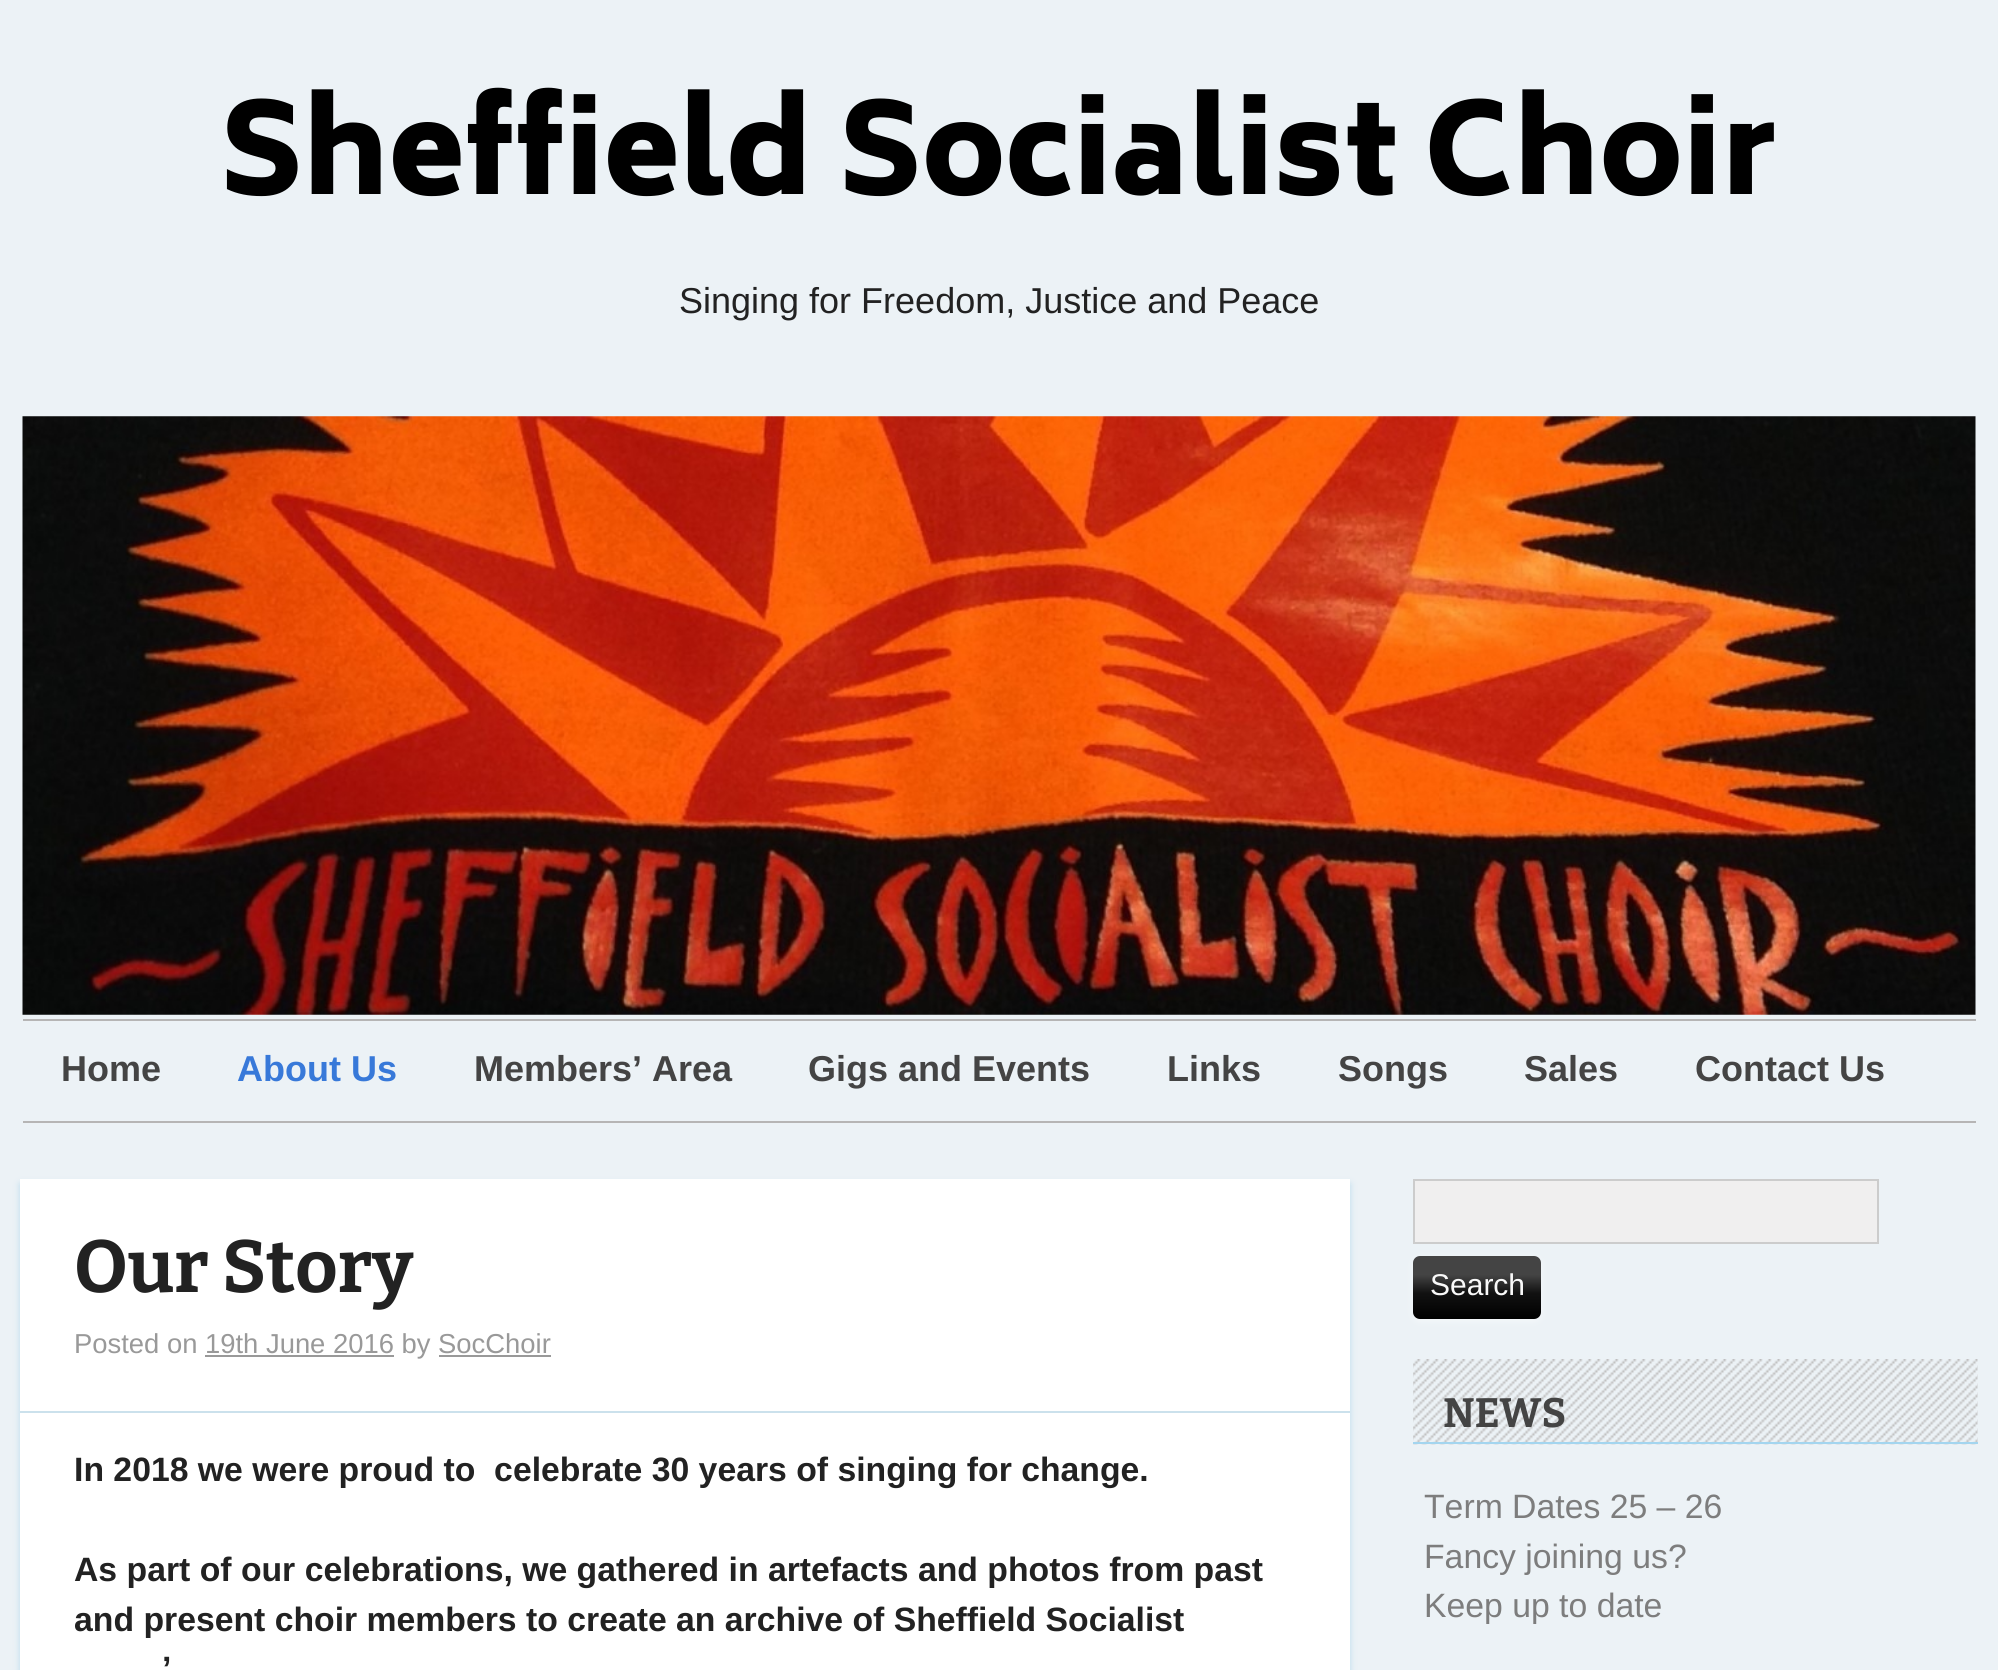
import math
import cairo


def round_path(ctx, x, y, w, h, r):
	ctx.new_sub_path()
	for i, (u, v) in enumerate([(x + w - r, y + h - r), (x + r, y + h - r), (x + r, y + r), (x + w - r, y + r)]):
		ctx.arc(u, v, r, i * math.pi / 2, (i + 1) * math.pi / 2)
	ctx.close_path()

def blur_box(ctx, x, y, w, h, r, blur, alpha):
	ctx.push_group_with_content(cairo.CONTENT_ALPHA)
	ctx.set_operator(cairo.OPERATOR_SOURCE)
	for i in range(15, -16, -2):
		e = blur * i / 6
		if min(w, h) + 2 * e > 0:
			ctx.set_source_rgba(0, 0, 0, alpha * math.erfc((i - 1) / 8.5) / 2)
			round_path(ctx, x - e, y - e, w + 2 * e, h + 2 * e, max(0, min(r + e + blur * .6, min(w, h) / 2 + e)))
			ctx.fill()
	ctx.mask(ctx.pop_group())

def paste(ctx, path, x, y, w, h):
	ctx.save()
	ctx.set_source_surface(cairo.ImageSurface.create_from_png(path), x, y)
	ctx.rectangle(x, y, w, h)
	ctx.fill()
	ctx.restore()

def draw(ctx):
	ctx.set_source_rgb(0.922, 0.949, 0.961)
	ctx.paint()
	ctx.select_font_face('Biryani Black')
	ctx.set_font_size(123.75)
	ctx.set_source_rgb(0, 0, 0)
	ctx.move_to(220, 194)
	ctx.show_text('Sheffield Socialist Choir')
	ctx.select_font_face('Liberation Sans')
	ctx.set_font_size(36)
	ctx.set_source_rgb(0.133, 0.133, 0.133)
	ctx.move_to(679, 313)
	ctx.show_text('Singing for Freedom, Justice and Peace')
	paste(ctx, 'media/1.png', 22, 416, 1954, 599)
	ctx.set_source_rgb(0.714, 0.71, 0.71)
	ctx.rectangle(23, 1019, 1953, 2)
	ctx.fill()
	ctx.rectangle(23, 1121, 1953, 2)
	ctx.fill()
	ctx.select_font_face('Liberation Sans', cairo.FONT_SLANT_NORMAL, cairo.FONT_WEIGHT_BOLD)
	ctx.set_source_rgb(0.267, 0.267, 0.267)
	ctx.move_to(61, 1081)
	ctx.show_text('Home')
	ctx.set_source_rgb(0.22, 0.475, 0.851)
	ctx.move_to(237, 1081)
	ctx.show_text('About Us')
	ctx.set_source_rgb(0.267, 0.267, 0.267)
	for x, y, s in [
		(474, 1081, 'Members’ Area'),
		(808, 1081, 'Gigs and Events'),
		(1167, 1081, 'Links'),
		(1338, 1081, 'Songs'),
		(1524, 1081, 'Sales'),
		(1695, 1081, 'Contact Us'),
	]:
		ctx.move_to(x, y)
		ctx.show_text(s)
	ctx.set_source_rgb(0.737, 0.863, 0.929)
	blur_box(ctx, 20, 1184, 1330, 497, 0, 3.5, 1)
	ctx.set_source_rgb(1, 1, 1)
	ctx.rectangle(20, 1179, 1330, 491)
	ctx.fill()
	ctx.set_source_rgb(0.796, 0.882, 0.925)
	ctx.rectangle(20, 1411, 1330, 2)
	ctx.fill()
	ctx.select_font_face('Bitter', cairo.FONT_SLANT_NORMAL, cairo.FONT_WEIGHT_BOLD)
	ctx.set_font_size(73.5)
	ctx.set_source_rgb(0.133, 0.133, 0.133)
	ctx.move_to(74, 1292)
	ctx.show_text('Our Story')
	ctx.select_font_face('Liberation Sans')
	ctx.set_font_size(27.4)
	ctx.set_source_rgb(0.6, 0.6, 0.6)
	ctx.move_to(74, 1353)
	ctx.show_text('Posted on 19th June 2016 by SocChoir')
	ctx.rectangle(205, 1355, 189, 2)
	ctx.fill()
	ctx.rectangle(439, 1355, 112, 2)
	ctx.fill()
	ctx.select_font_face('Liberation Sans', cairo.FONT_SLANT_NORMAL, cairo.FONT_WEIGHT_BOLD)
	ctx.set_font_size(33.75)
	ctx.set_source_rgb(0.133, 0.133, 0.133)
	for x, y, s in [
		(74, 1481, 'In 2018 we were proud to  celebrate 30 years of singing for change.'),
		(74, 1581, 'As part of our celebrations, we gathered in artefacts and photos from past'),
		(74, 1631, 'and present choir members to create an archive of Sheffield Socialist'),
		(162, 1680, '’'),
	]:
		ctx.move_to(x, y)
		ctx.show_text(s)
	ctx.set_source_rgb(0.941, 0.937, 0.937)
	ctx.rectangle(1414, 1180, 464, 63)
	ctx.fill_preserve()
	ctx.set_source_rgb(0.8, 0.8, 0.8)
	ctx.stroke()
	ctx.set_source_rgb(1, 1, 1)
	blur_box(ctx, 1413, 1258, 128, 63, 7, 3.5, 0.5)
	gradient = cairo.LinearGradient(1413, 1256, 1413, 1319)
	gradient.add_color_stop_rgba(0, 1, 1, 1, 1)
	gradient.add_color_stop_rgba(0, 0.267, 0.267, 0.267, 1)
	gradient.add_color_stop_rgba(0.3, 0.267, 0.267, 0.267, 1)
	gradient.add_color_stop_rgba(0.59, 0.067, 0.067, 0.067, 1)
	gradient.add_color_stop_rgba(1, 0, 0, 0, 1)
	ctx.set_source(gradient)
	round_path(ctx, 1413, 1256, 128, 63, 7)
	ctx.fill()
	ctx.select_font_face('Liberation Sans')
	ctx.set_font_size(30)
	ctx.set_source_rgb(0.973, 0.973, 0.973)
	ctx.move_to(1430, 1295)
	ctx.show_text('Search')
	paste(ctx, 'media/2.png', 1413, 1359, 565, 86)
	ctx.set_source_rgb(0.639, 0.835, 0.937)
	ctx.rectangle(1413, 1442, 565, 2)
	ctx.fill()
	ctx.select_font_face('Bitter', cairo.FONT_SLANT_NORMAL, cairo.FONT_WEIGHT_BOLD)
	ctx.set_font_size(41)
	ctx.set_source_rgb(0.267, 0.267, 0.267)
	ctx.move_to(1443, 1427)
	ctx.show_text('NEWS')
	ctx.select_font_face('Liberation Sans')
	ctx.set_font_size(33.75)
	ctx.set_source_rgb(0.49, 0.49, 0.49)
	for x, y, s in [
		(1424, 1518, 'Term Dates 25 – 26'),
		(1424, 1568, 'Fancy joining us?'),
		(1424, 1617, 'Keep up to date'),
	]:
		ctx.move_to(x, y)
		ctx.show_text(s)


surface = cairo.ImageSurface(cairo.FORMAT_RGB24, 1998, 1670)
ctx = cairo.Context(surface)
options = cairo.FontOptions()
options.set_hint_metrics(cairo.HINT_METRICS_OFF)
options.set_hint_style(cairo.HINT_STYLE_NONE)
ctx.set_font_options(options)
ctx.set_miter_limit(4)
draw(ctx)
surface.write_to_png('image.png')
